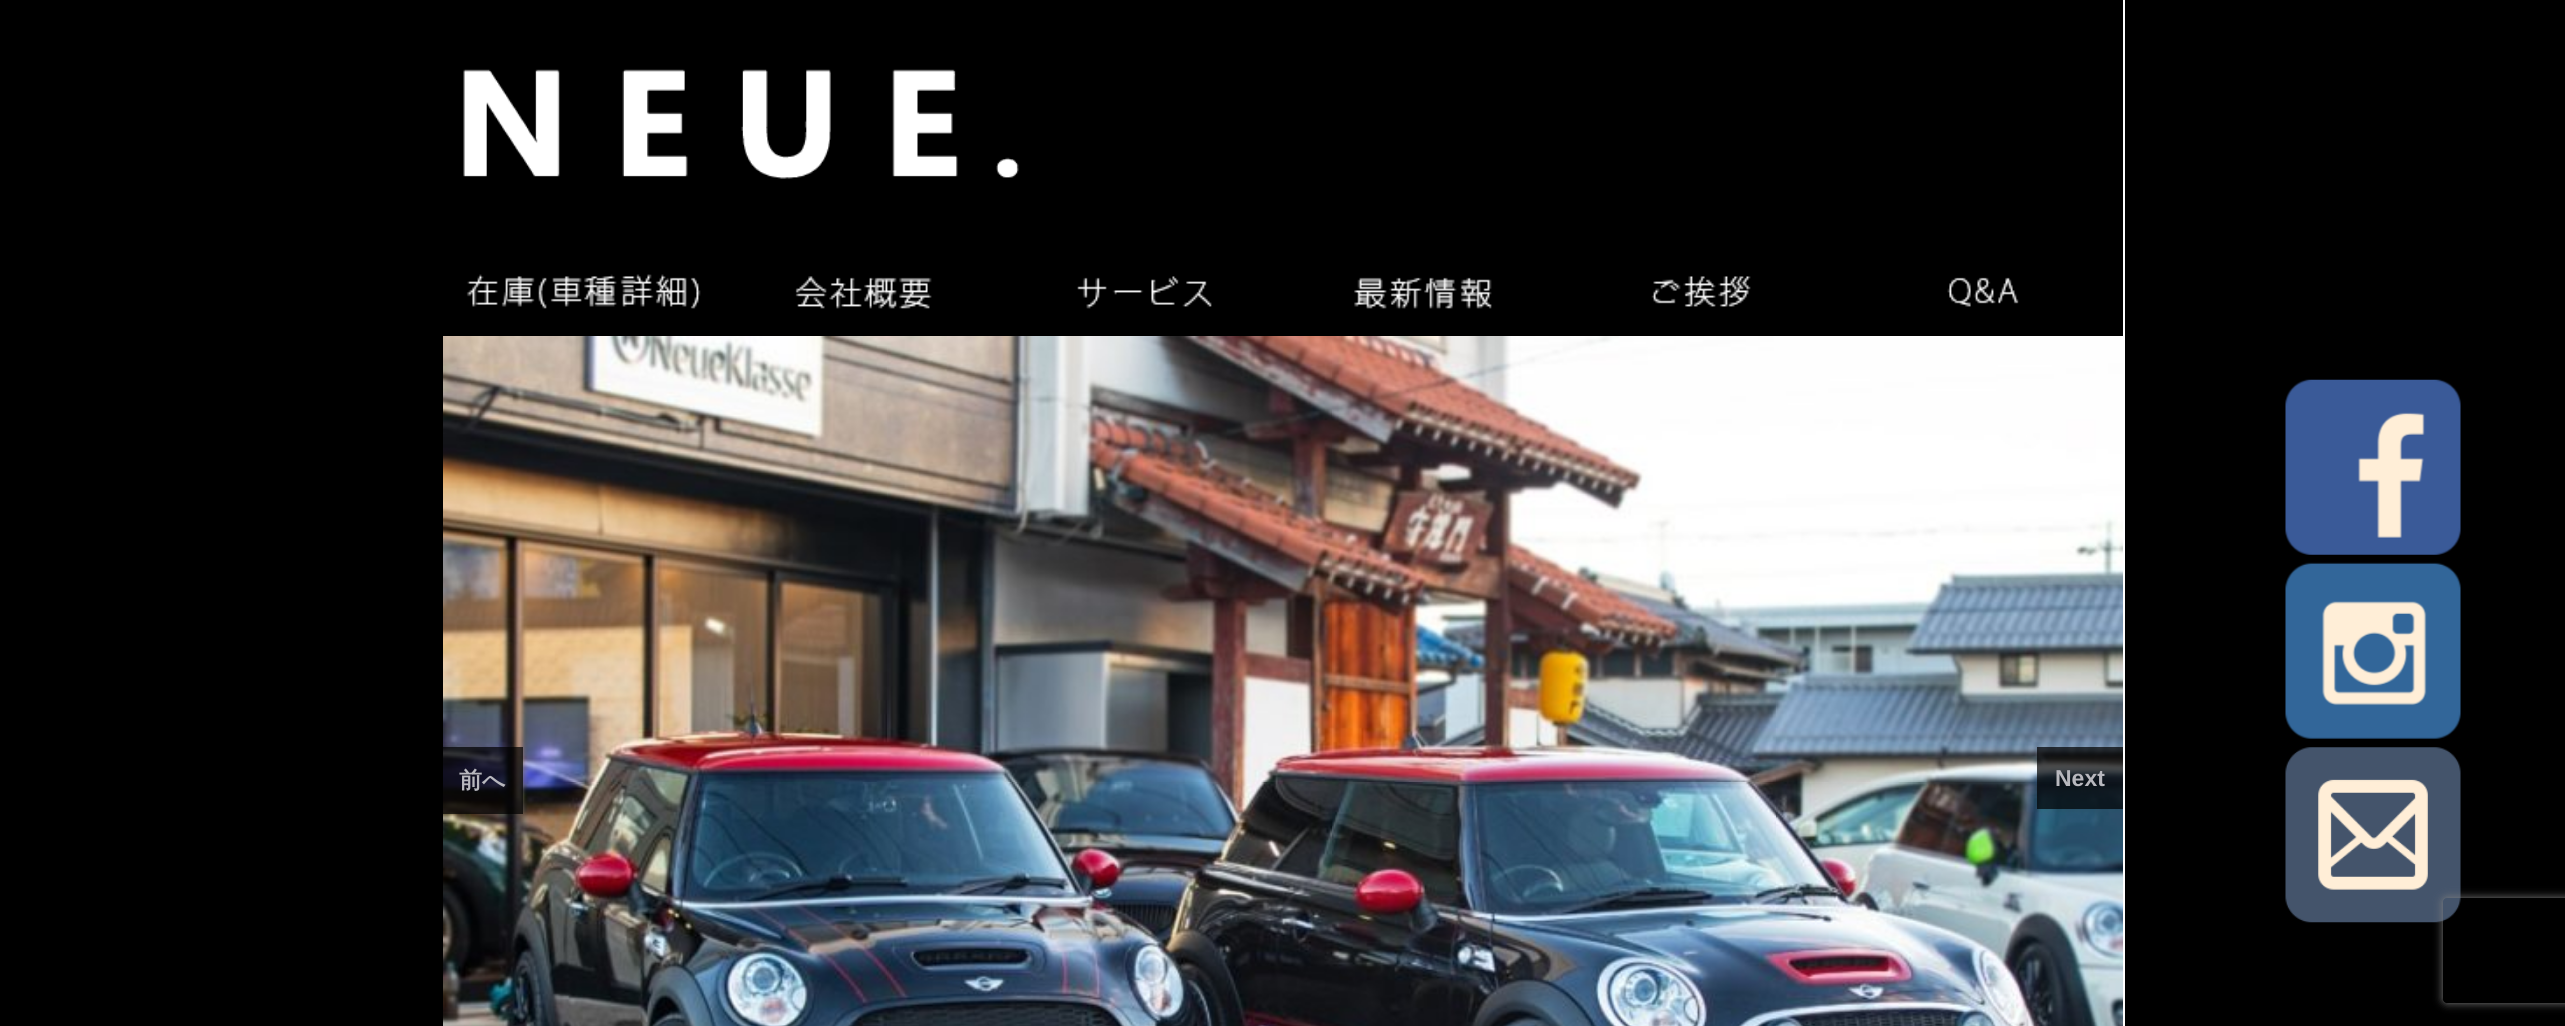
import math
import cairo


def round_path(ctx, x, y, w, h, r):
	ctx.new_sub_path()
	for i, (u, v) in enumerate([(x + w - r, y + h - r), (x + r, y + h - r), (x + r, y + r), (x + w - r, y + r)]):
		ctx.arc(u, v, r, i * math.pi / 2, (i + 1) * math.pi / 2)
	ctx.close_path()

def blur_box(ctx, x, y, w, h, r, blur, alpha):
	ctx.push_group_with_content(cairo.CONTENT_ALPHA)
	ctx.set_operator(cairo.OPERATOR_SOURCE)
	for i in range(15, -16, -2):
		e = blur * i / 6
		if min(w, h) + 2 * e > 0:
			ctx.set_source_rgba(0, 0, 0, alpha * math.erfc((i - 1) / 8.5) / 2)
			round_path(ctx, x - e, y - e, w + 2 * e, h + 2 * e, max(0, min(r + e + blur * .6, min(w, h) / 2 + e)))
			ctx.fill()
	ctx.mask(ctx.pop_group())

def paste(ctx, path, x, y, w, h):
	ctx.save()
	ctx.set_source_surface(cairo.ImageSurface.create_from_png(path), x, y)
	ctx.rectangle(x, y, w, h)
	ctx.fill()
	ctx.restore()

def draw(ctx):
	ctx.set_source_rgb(0, 0, 0)
	ctx.paint()
	ctx.set_source_rgb(1, 1, 1)
	ctx.rectangle(2123, 0, 2, 1026)
	ctx.fill()
	paste(ctx, 'media/1.png', 463, 69, 556, 110)
	paste(ctx, 'media/2.png', 466, 274, 235, 35)
	paste(ctx, 'media/3.png', 795, 276, 137, 33)
	paste(ctx, 'media/4.png', 1077, 276, 135, 33)
	paste(ctx, 'media/5.png', 1354, 277, 138, 32)
	paste(ctx, 'media/6.png', 1651, 276, 100, 31)
	paste(ctx, 'media/7.png', 1947, 277, 72, 30)
	paste(ctx, 'media/8.png', 443, 336, 1680, 690)
	ctx.set_source_rgba(0, 0, 0, 0.7)
	ctx.rectangle(443, 747, 80, 67)
	ctx.fill()
	ctx.select_font_face('WenQuanYi Zen Hei', cairo.FONT_SLANT_NORMAL, cairo.FONT_WEIGHT_BOLD)
	ctx.set_font_size(23)
	ctx.set_source_rgb(0.722, 0.722, 0.745)
	ctx.move_to(459, 788)
	ctx.show_text('前へ')
	ctx.set_source_rgba(0, 0, 0, 0.7)
	ctx.rectangle(2037, 747, 86, 62)
	ctx.fill()
	ctx.select_font_face('Liberation Sans', cairo.FONT_SLANT_NORMAL, cairo.FONT_WEIGHT_BOLD)
	ctx.set_source_rgb(0.722, 0.722, 0.745)
	ctx.move_to(2055, 786)
	ctx.show_text('Next')
	paste(ctx, 'media/9.png', 2285, 379, 176, 176)
	paste(ctx, 'media/10.png', 2285, 562, 176, 177)
	paste(ctx, 'media/11.png', 2285, 747, 176, 176)
	ctx.save()
	ctx.set_fill_rule(cairo.FILL_RULE_EVEN_ODD)
	ctx.new_path()
	ctx.move_to(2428, 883)
	ctx.line_to(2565, 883)
	ctx.line_to(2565, 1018)
	ctx.line_to(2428, 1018)
	ctx.close_path()
	ctx.move_to(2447, 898)
	ctx.line_to(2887, 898)
	ctx.curve_to(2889, 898, 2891, 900, 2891, 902)
	ctx.line_to(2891, 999)
	ctx.curve_to(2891, 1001, 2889, 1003, 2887, 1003)
	ctx.line_to(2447, 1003)
	ctx.curve_to(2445, 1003, 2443, 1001, 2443, 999)
	ctx.line_to(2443, 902)
	ctx.curve_to(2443, 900, 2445, 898, 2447, 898)
	ctx.close_path()
	ctx.clip()
	ctx.set_source_rgb(0.502, 0.502, 0.502)
	blur_box(ctx, 2443, 898, 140, 105, 4, 4.5, 1)
	ctx.restore()


surface = cairo.ImageSurface(cairo.FORMAT_RGB24, 2565, 1026)
ctx = cairo.Context(surface)
options = cairo.FontOptions()
options.set_hint_metrics(cairo.HINT_METRICS_OFF)
options.set_hint_style(cairo.HINT_STYLE_NONE)
ctx.set_font_options(options)
ctx.set_miter_limit(4)
draw(ctx)
surface.write_to_png('image.png')
